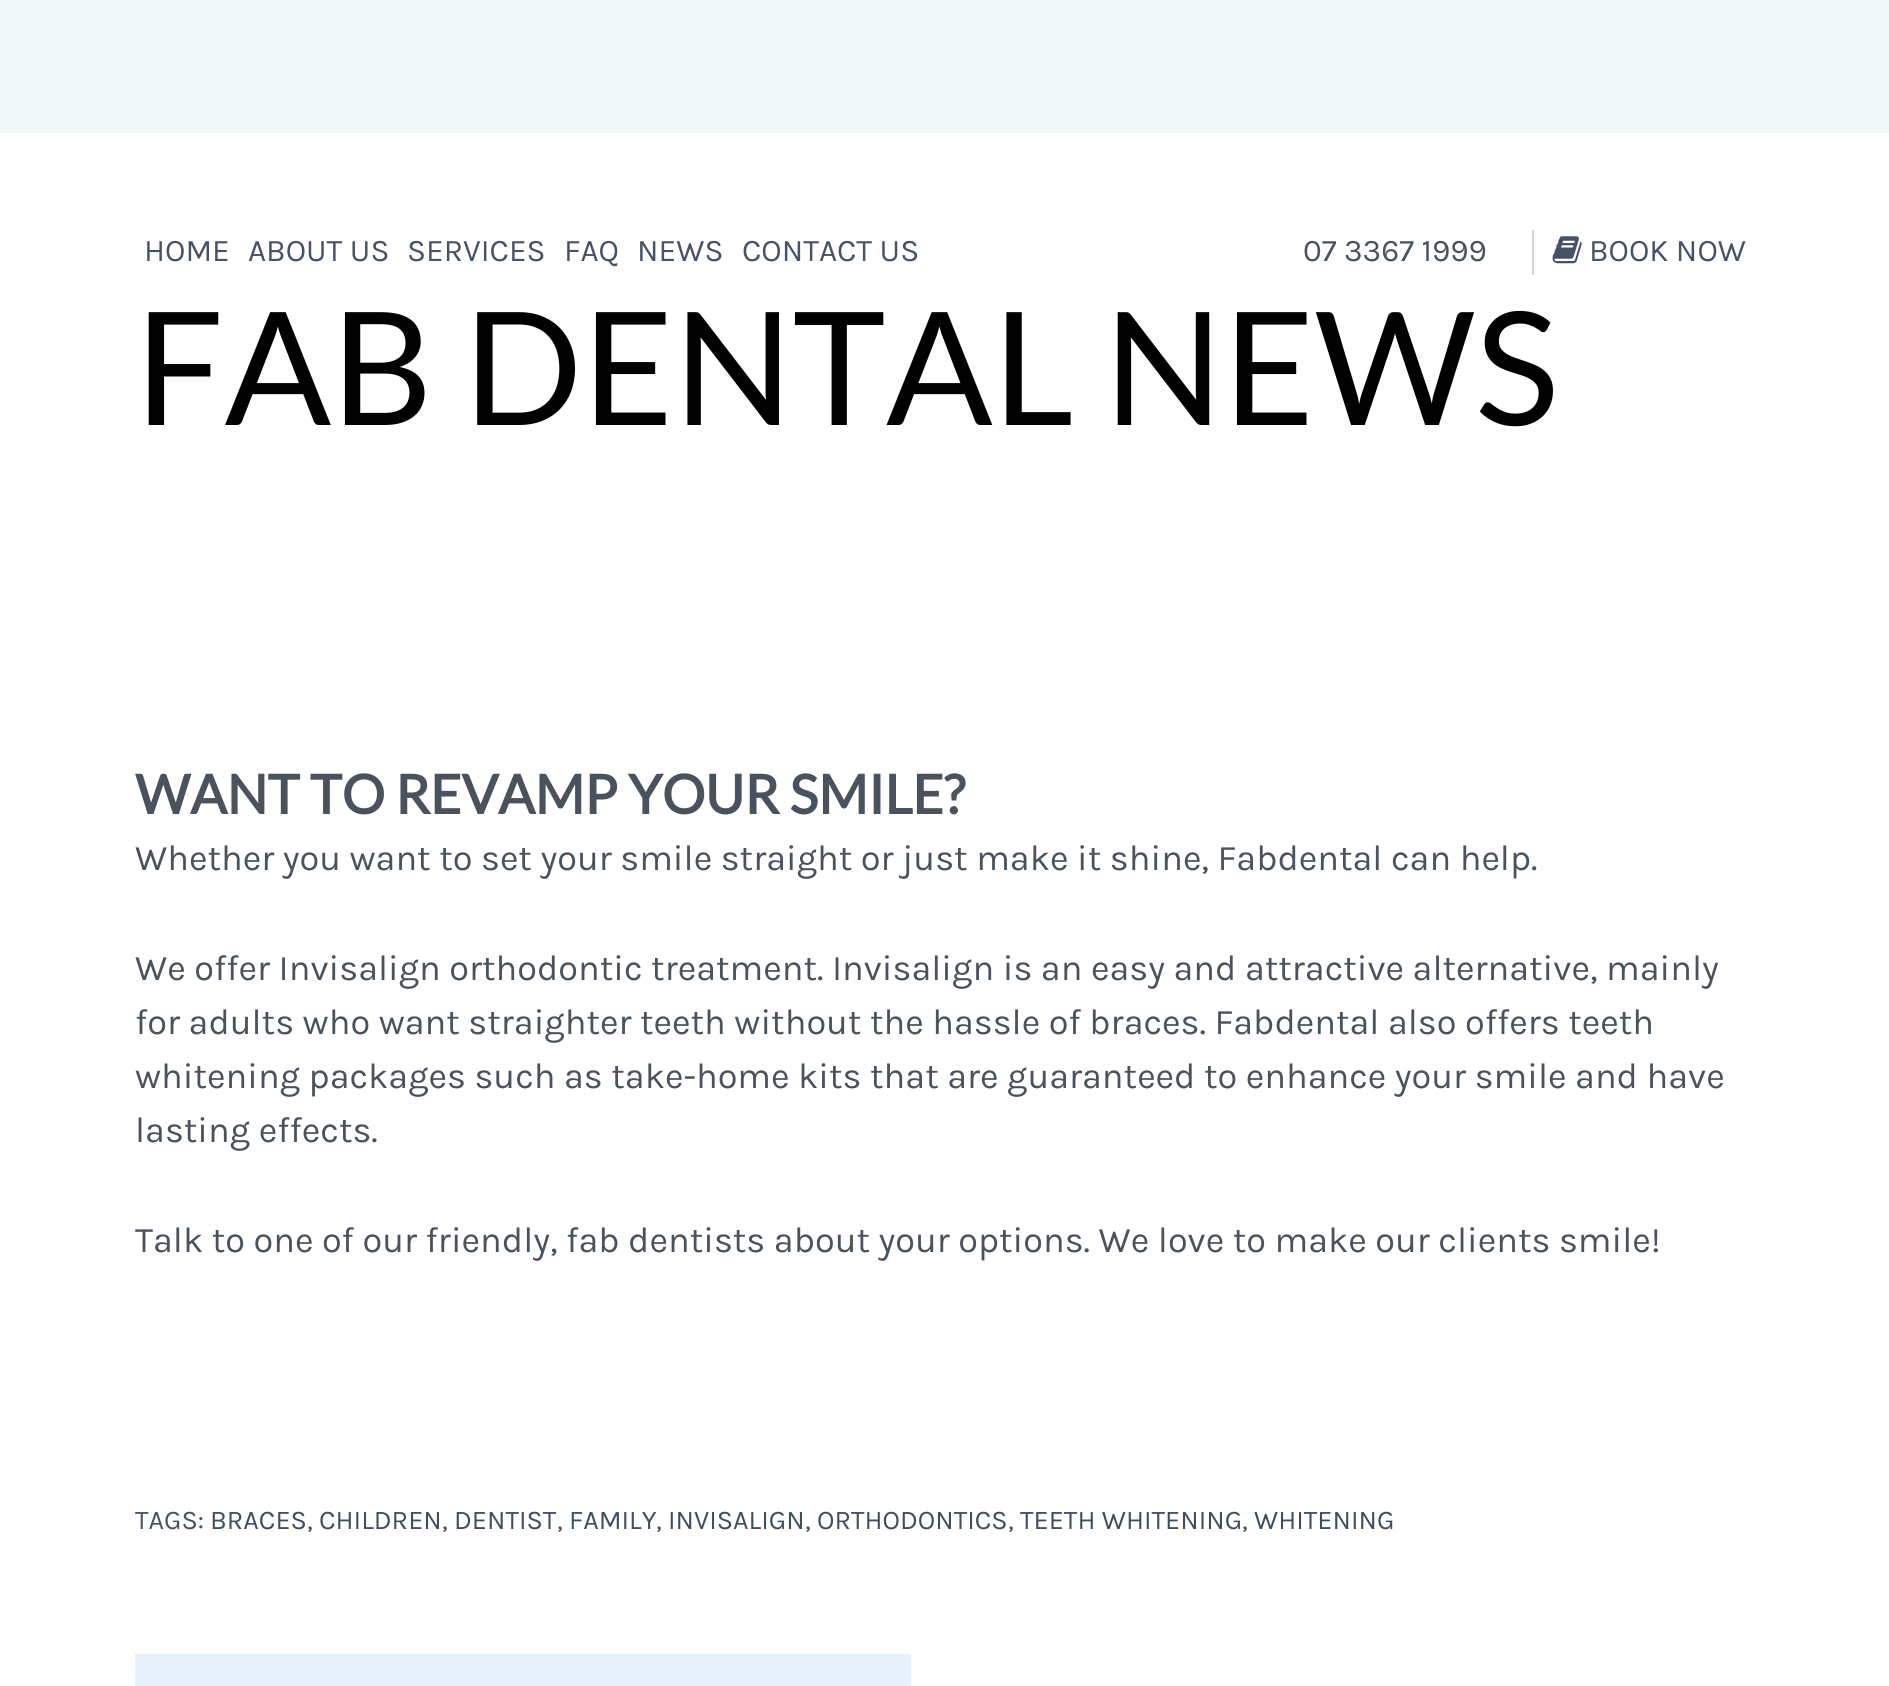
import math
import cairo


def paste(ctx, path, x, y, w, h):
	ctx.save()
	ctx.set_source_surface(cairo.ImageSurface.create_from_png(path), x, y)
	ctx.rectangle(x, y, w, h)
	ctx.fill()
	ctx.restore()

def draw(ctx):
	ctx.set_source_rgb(1, 1, 1)
	ctx.paint()
	ctx.set_source_rgb(0.945, 0.969, 0.976)
	ctx.rectangle(0, 0, 1889, 133)
	ctx.fill()
	ctx.select_font_face('Karla')
	ctx.set_font_size(31.5)
	ctx.set_source_rgb(0.278, 0.322, 0.404)
	for x, y, s in [
		(144, 261, 'HOME'),
		(248, 261, 'ABOUT US'),
		(407, 261, 'SERVICES'),
		(564, 261, 'FAQ'),
		(637, 261, 'NEWS'),
		(742, 261, 'CONTACT US'),
	]:
		ctx.move_to(x, y)
		ctx.show_text(s)
	ctx.set_source_rgb(0.29, 0.322, 0.365)
	ctx.move_to(1303, 261)
	ctx.show_text('07 3367 1999')
	ctx.set_source_rgb(0.827, 0.827, 0.827)
	ctx.rectangle(1532, 230, 2, 45)
	ctx.fill()
	paste(ctx, 'media/1.png', 1552, 236, 30, 28)
	ctx.set_source_rgb(0.278, 0.322, 0.404)
	ctx.move_to(1589, 261)
	ctx.show_text('BOOK NOW')
	ctx.select_font_face('Lato')
	ctx.set_font_size(157.5)
	ctx.set_source_rgb(0, 0, 0)
	ctx.move_to(135, 425)
	ctx.show_text('FAB DENTAL NEWS')
	ctx.select_font_face('Lato', cairo.FONT_SLANT_NORMAL, cairo.FONT_WEIGHT_BOLD)
	ctx.set_font_size(54)
	ctx.set_source_rgb(0.29, 0.322, 0.365)
	ctx.move_to(135, 814)
	ctx.show_text('WANT TO REVAMP YOUR SMILE?')
	ctx.select_font_face('Karla')
	ctx.set_font_size(36)
	for x, y, s in [
		(135, 870, 'Whether you want to set your smile straight or just make it shine, Fabdental can help.'),
		(135, 980, 'We offer Invisalign orthodontic treatment. Invisalign is an easy and attractive alternative, mainly'),
		(135, 1034, 'for adults who want straighter teeth without the hassle of braces. Fabdental also offers teeth'),
		(135, 1088, 'whitening packages such as take-home kits that are guaranteed to enhance your smile and have'),
		(135, 1142, 'lasting effects.'),
		(135, 1252, 'Talk to one of our friendly, fab dentists about your options. We love to make our clients smile!'),
	]:
		ctx.move_to(x, y)
		ctx.show_text(s)
	ctx.set_font_size(27)
	ctx.move_to(135, 1529)
	ctx.show_text('TAGS:')
	ctx.set_source_rgb(0.251, 0.302, 0.373)
	ctx.move_to(210, 1529)
	ctx.show_text('BRACES')
	ctx.set_source_rgb(0.29, 0.322, 0.365)
	ctx.move_to(307, 1529)
	ctx.show_text(',')
	ctx.set_source_rgb(0.251, 0.302, 0.373)
	ctx.move_to(319, 1529)
	ctx.show_text('CHILDREN')
	ctx.set_source_rgb(0.29, 0.322, 0.365)
	ctx.move_to(442, 1529)
	ctx.show_text(',')
	ctx.set_source_rgb(0.251, 0.302, 0.373)
	ctx.move_to(454, 1529)
	ctx.show_text('DENTIST')
	ctx.set_source_rgb(0.29, 0.322, 0.365)
	ctx.move_to(557, 1529)
	ctx.show_text(',')
	ctx.set_source_rgb(0.251, 0.302, 0.373)
	ctx.move_to(569, 1529)
	ctx.show_text('FAMILY')
	ctx.set_source_rgb(0.29, 0.322, 0.365)
	ctx.move_to(656, 1529)
	ctx.show_text(',')
	ctx.set_source_rgb(0.251, 0.302, 0.373)
	ctx.move_to(668, 1529)
	ctx.show_text('INVISALIGN')
	ctx.set_source_rgb(0.29, 0.322, 0.365)
	ctx.move_to(805, 1529)
	ctx.show_text(',')
	ctx.set_source_rgb(0.251, 0.302, 0.373)
	ctx.move_to(817, 1529)
	ctx.show_text('ORTHODONTICS')
	ctx.set_source_rgb(0.29, 0.322, 0.365)
	ctx.move_to(1008, 1529)
	ctx.show_text(',')
	ctx.set_source_rgb(0.251, 0.302, 0.373)
	ctx.move_to(1020, 1529)
	ctx.show_text('TEETH WHITENING')
	ctx.set_source_rgb(0.29, 0.322, 0.365)
	ctx.move_to(1242, 1529)
	ctx.show_text(',')
	ctx.set_source_rgb(0.251, 0.302, 0.373)
	ctx.move_to(1254, 1529)
	ctx.show_text('WHITENING')
	ctx.set_source_rgb(0.898, 0.941, 0.984)
	ctx.rectangle(135, 1654, 776, 32)
	ctx.fill()


surface = cairo.ImageSurface(cairo.FORMAT_RGB24, 1889, 1686)
ctx = cairo.Context(surface)
options = cairo.FontOptions()
options.set_hint_metrics(cairo.HINT_METRICS_OFF)
options.set_hint_style(cairo.HINT_STYLE_NONE)
ctx.set_font_options(options)
ctx.set_miter_limit(4)
draw(ctx)
surface.write_to_png('image.png')
